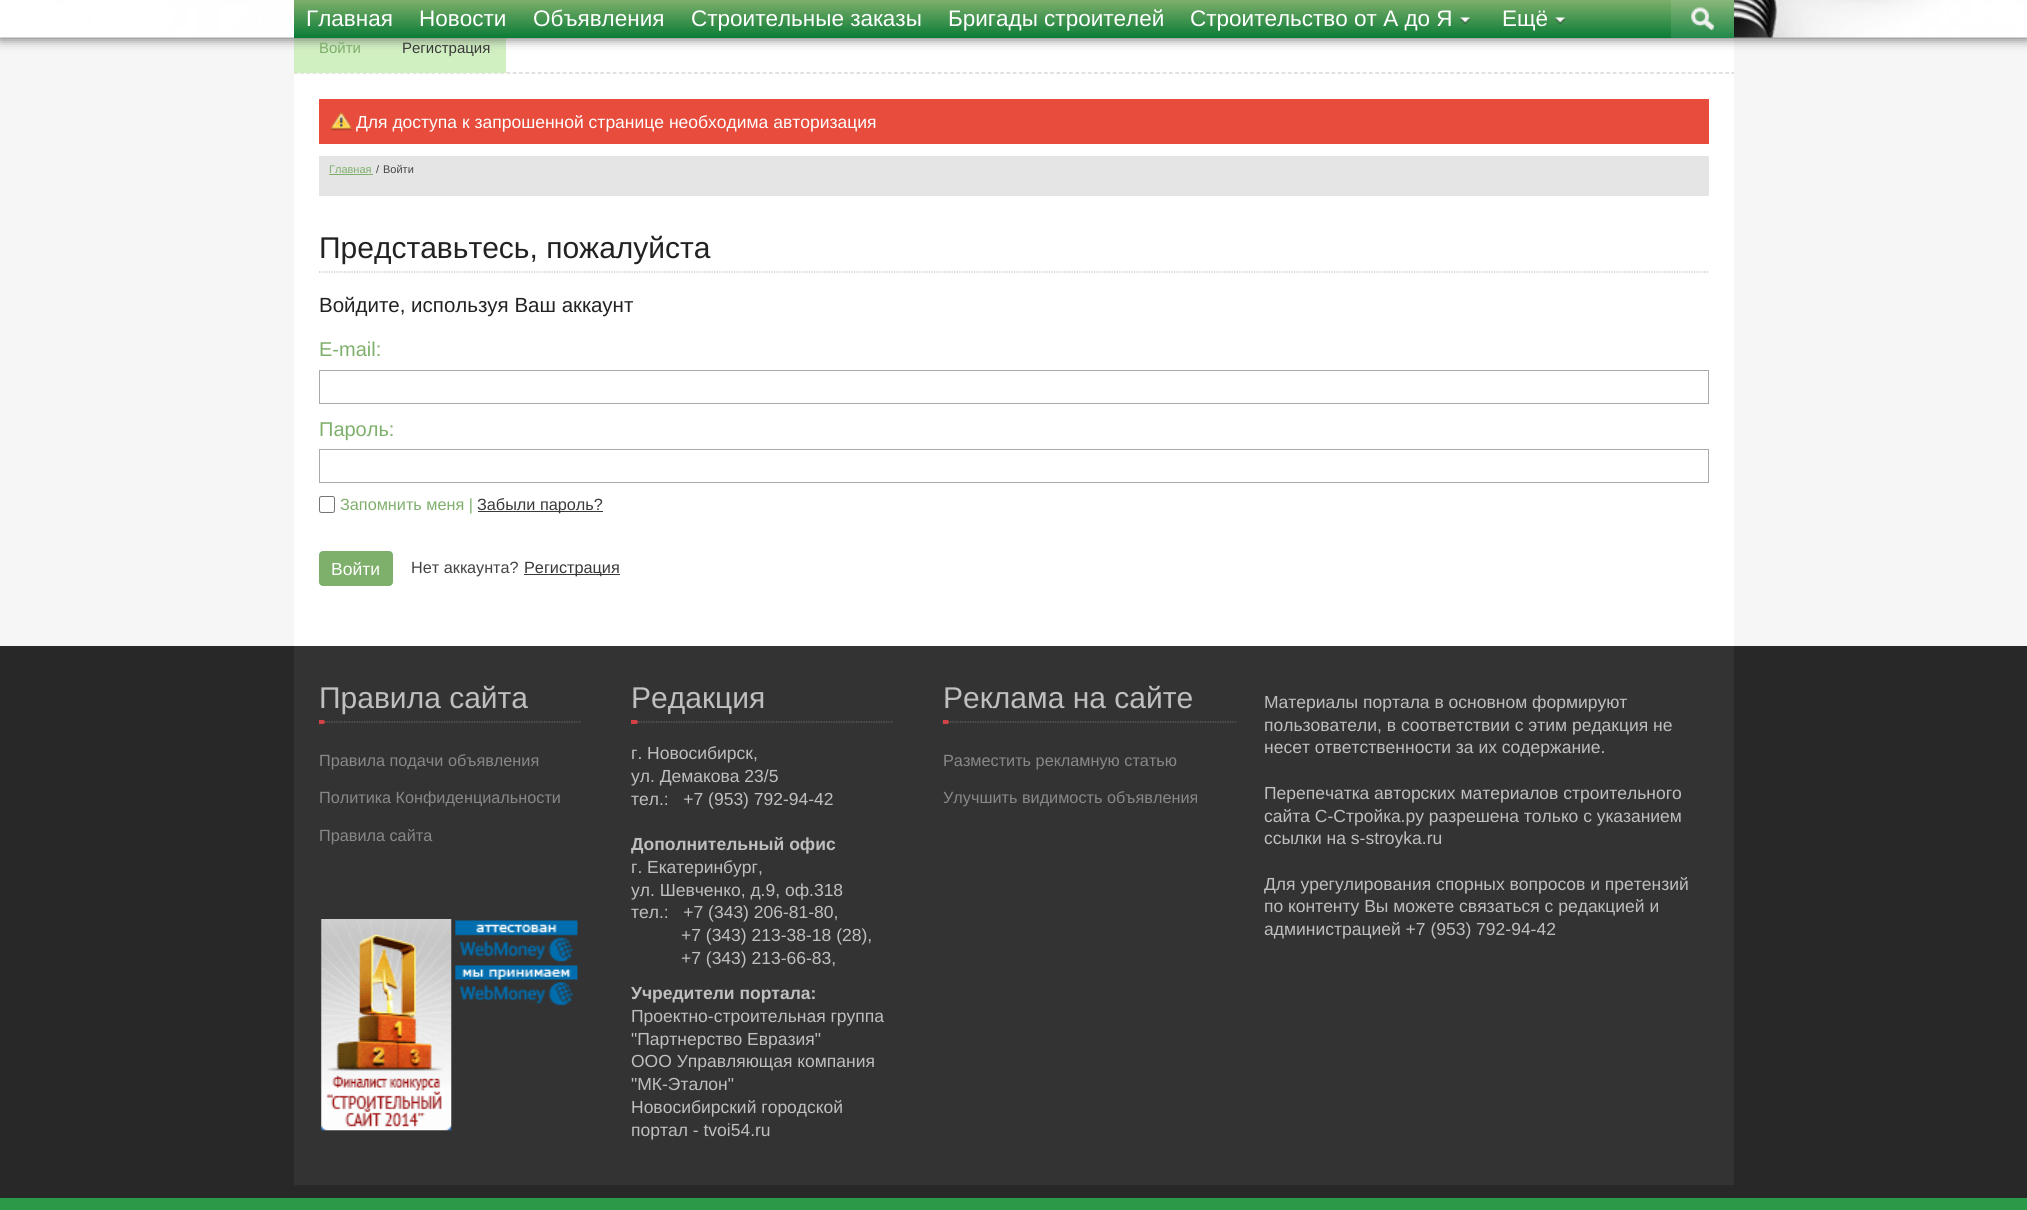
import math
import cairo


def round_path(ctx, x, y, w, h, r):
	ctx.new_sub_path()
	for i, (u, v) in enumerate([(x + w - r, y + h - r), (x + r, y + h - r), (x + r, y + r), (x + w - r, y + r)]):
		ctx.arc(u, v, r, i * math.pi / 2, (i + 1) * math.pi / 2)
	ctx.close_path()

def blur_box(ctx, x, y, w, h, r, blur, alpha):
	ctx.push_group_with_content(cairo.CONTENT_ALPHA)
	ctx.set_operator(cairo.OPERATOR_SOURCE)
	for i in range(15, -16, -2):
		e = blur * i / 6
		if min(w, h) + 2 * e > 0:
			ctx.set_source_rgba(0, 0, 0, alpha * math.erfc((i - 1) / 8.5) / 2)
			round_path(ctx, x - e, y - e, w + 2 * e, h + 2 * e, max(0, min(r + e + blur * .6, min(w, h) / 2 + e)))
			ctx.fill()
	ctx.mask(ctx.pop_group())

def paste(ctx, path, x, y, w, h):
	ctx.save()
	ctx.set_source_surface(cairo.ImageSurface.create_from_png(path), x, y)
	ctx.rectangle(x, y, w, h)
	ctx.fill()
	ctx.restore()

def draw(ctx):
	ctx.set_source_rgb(0.961, 0.961, 0.961)
	ctx.paint()
	ctx.set_source_rgb(1, 1, 1)
	ctx.rectangle(294, 38, 1440, 608)
	ctx.fill()
	ctx.new_path()
	ctx.move_to(294, 73)
	ctx.line_to(1734, 73)
	ctx.set_source_rgb(0.808, 0.808, 0.808)
	ctx.set_line_width(1.2)
	ctx.set_dash([3.75, 2.5])
	ctx.stroke()
	ctx.set_source_rgb(0.82, 0.941, 0.761)
	ctx.rectangle(294, 38, 212, 35)
	ctx.fill()
	ctx.set_source_rgb(0.333, 0.333, 0.333)
	blur_box(ctx, 0, 0, 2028, 38, 0, 6, 1)
	paste(ctx, 'media/1.png', 0, 0, 2027, 38)
	gradient = cairo.LinearGradient(1014, 0, 1014, 38)
	gradient.add_color_stop_rgba(0, 0.494, 0.686, 0.42, 1)
	gradient.add_color_stop_rgba(1, 0.035, 0.486, 0.212, 1)
	ctx.set_source(gradient)
	ctx.rectangle(294, 0, 1440, 38)
	ctx.fill()
	ctx.select_font_face('Liberation Sans')
	ctx.set_font_size(22.5)
	ctx.set_source_rgb(1, 1, 1)
	for x, y, s in [
		(306, 26, 'Главная'),
		(419, 26, 'Новости'),
		(533, 26, 'Объявления'),
		(691, 26, 'Строительные заказы'),
		(948, 26, 'Бригады строителей'),
		(1190, 26, 'Строительство от А до Я'),
	]:
		ctx.move_to(x, y)
		ctx.show_text(s)
	paste(ctx, 'media/2.png', 1460, 17, 11, 7)
	ctx.move_to(1502, 26)
	ctx.show_text('Ещё')
	paste(ctx, 'media/2.png', 1555, 17, 11, 7)
	ctx.set_source_rgba(1, 1, 1, 0.1)
	ctx.rectangle(1671, 0, 63, 38)
	ctx.fill()
	paste(ctx, 'media/3.png', 1691, 7, 23, 23)
	ctx.set_font_size(15)
	ctx.set_source_rgb(0.494, 0.686, 0.42)
	ctx.move_to(319, 53)
	ctx.show_text('Войти')
	ctx.set_source_rgb(0.224, 0.224, 0.224)
	ctx.move_to(402, 53)
	ctx.show_text('Регистрация')
	ctx.set_source_rgb(0.906, 0.298, 0.235)
	ctx.rectangle(319, 99, 1390, 45)
	ctx.fill()
	paste(ctx, 'media/4.png', 331, 112, 21, 19)
	ctx.set_font_size(17.5)
	ctx.set_source_rgb(1, 1, 1)
	ctx.move_to(356, 128)
	ctx.show_text('Для доступа к запрошенной странице необходима авторизация')
	ctx.set_source_rgb(0.902, 0.898, 0.898)
	ctx.rectangle(319, 156, 1390, 40)
	ctx.fill()
	ctx.set_font_size(11)
	ctx.set_source_rgb(0.494, 0.686, 0.42)
	ctx.move_to(329, 173)
	ctx.show_text('Главная')
	ctx.rectangle(329, 174, 44, 1)
	ctx.fill()
	ctx.set_source_rgb(0.267, 0.267, 0.267)
	ctx.move_to(376, 173)
	ctx.show_text('/')
	ctx.move_to(383, 173)
	ctx.show_text('Войти')
	ctx.new_path()
	ctx.move_to(319, 272)
	ctx.line_to(1709, 272)
	ctx.set_source_rgb(0.749, 0.749, 0.749)
	ctx.set_dash([1.25, 1.25])
	ctx.stroke()
	ctx.set_font_size(30)
	ctx.set_source_rgb(0.133, 0.133, 0.133)
	ctx.move_to(319, 258)
	ctx.show_text('Представьтесь, пожалуйста')
	ctx.set_font_size(20.5)
	ctx.move_to(319, 312)
	ctx.show_text('Войдите, используя Ваш аккаунт')
	ctx.set_font_size(20)
	ctx.set_source_rgb(0.494, 0.686, 0.42)
	ctx.move_to(319, 356)
	ctx.show_text('E-mail:')
	ctx.rectangle(319.5, 370.5, 1389, 33)
	ctx.set_source_rgb(0.667, 0.667, 0.667)
	ctx.set_line_width(1)
	ctx.set_dash([])
	ctx.stroke()
	ctx.set_source_rgb(0.494, 0.686, 0.42)
	ctx.move_to(319, 436)
	ctx.show_text('Пароль:')
	ctx.rectangle(319.5, 449.5, 1389, 33)
	ctx.set_source_rgb(0.667, 0.667, 0.667)
	ctx.stroke()
	round_path(ctx, 319.5, 496.5, 15, 16, 2)
	ctx.set_source_rgb(0.463, 0.463, 0.463)
	ctx.stroke()
	ctx.set_font_size(16.25)
	ctx.set_source_rgb(0.494, 0.686, 0.42)
	ctx.move_to(340, 510)
	ctx.show_text('Запомнить меня |')
	ctx.set_source_rgb(0.224, 0.224, 0.224)
	ctx.rectangle(478, 511, 125, 1)
	ctx.fill()
	ctx.move_to(477, 510)
	ctx.show_text('Забыли пароль?')
	ctx.set_source_rgb(0.494, 0.686, 0.42)
	round_path(ctx, 319, 551, 74, 35, 4)
	ctx.fill()
	ctx.set_font_size(17.5)
	ctx.set_source_rgb(1, 1, 1)
	ctx.move_to(331, 575)
	ctx.show_text('Войти')
	ctx.set_font_size(16.25)
	ctx.set_source_rgb(0.267, 0.267, 0.267)
	ctx.move_to(411, 573)
	ctx.show_text('Нет аккаунта?')
	ctx.set_source_rgb(0.224, 0.224, 0.224)
	ctx.rectangle(524, 574, 96, 1)
	ctx.fill()
	ctx.move_to(524, 573)
	ctx.show_text('Регистрация')
	ctx.set_source_rgb(0.157, 0.157, 0.157)
	ctx.rectangle(0, 646, 2027, 552)
	ctx.fill()
	ctx.set_source_rgb(0.2, 0.2, 0.2)
	ctx.rectangle(294, 646, 1440, 539)
	ctx.fill()
	ctx.new_path()
	ctx.move_to(319, 722)
	ctx.line_to(581, 722)
	ctx.set_source_rgb(0.4, 0.4, 0.4)
	ctx.set_line_width(1.2)
	ctx.set_dash([1.25, 1.25])
	ctx.stroke()
	ctx.set_font_size(30)
	ctx.set_source_rgb(0.749, 0.749, 0.749)
	ctx.move_to(319, 708)
	ctx.show_text('Правила сайта')
	ctx.set_source_rgb(0.82, 0.263, 0.267)
	ctx.new_path()
	ctx.move_to(319, 720)
	ctx.line_to(323, 720)
	ctx.curve_to(324, 720, 325, 721, 325, 722)
	ctx.curve_to(325, 723, 324, 724, 323, 724)
	ctx.line_to(319, 724)
	ctx.close_path()
	ctx.fill()
	ctx.set_font_size(16.25)
	ctx.set_source_rgb(0.533, 0.533, 0.533)
	for x, y, s in [
		(319, 766, 'Правила подачи объявления'),
		(319, 803, 'Политика Конфиденциальности'),
		(319, 841, 'Правила сайта'),
	]:
		ctx.move_to(x, y)
		ctx.show_text(s)
	paste(ctx, 'media/5.png', 321, 919, 131, 212)
	paste(ctx, 'media/6.png', 455, 920, 123, 42)
	paste(ctx, 'media/7.png', 455, 965, 123, 41)
	ctx.new_path()
	ctx.move_to(631, 722)
	ctx.line_to(892.5, 722)
	ctx.set_source_rgb(0.4, 0.4, 0.4)
	ctx.stroke()
	ctx.set_font_size(30)
	ctx.set_source_rgb(0.749, 0.749, 0.749)
	ctx.move_to(631, 708)
	ctx.show_text('Редакция')
	ctx.set_source_rgb(0.82, 0.263, 0.267)
	ctx.new_path()
	ctx.move_to(631, 720)
	ctx.line_to(636, 720)
	ctx.curve_to(637, 720, 638, 721, 638, 722)
	ctx.curve_to(638, 723, 637, 724, 636, 724)
	ctx.line_to(631, 724)
	ctx.close_path()
	ctx.fill()
	ctx.set_font_size(17.5)
	ctx.set_source_rgb(0.749, 0.749, 0.749)
	for x, y, s in [
		(631, 759, 'г. Новосибирск,'),
		(631, 782, 'ул. Демакова 23/5'),
		(631, 805, 'тел.:   +7 (953) 792-94-42'),
	]:
		ctx.move_to(x, y)
		ctx.show_text(s)
	ctx.select_font_face('Liberation Sans', cairo.FONT_SLANT_NORMAL, cairo.FONT_WEIGHT_BOLD)
	ctx.move_to(631, 850)
	ctx.show_text('Дополнительный офис')
	ctx.select_font_face('Liberation Sans')
	for x, y, s in [
		(631, 873, 'г. Екатеринбург,'),
		(631, 896, 'ул. Шевченко, д.9, оф.318'),
		(631, 918, 'тел.:   +7 (343) 206-81-80,'),
		(681, 941, '+7 (343) 213-38-18 (28),'),
		(681, 964, '+7 (343) 213-66-83,'),
	]:
		ctx.move_to(x, y)
		ctx.show_text(s)
	ctx.select_font_face('Liberation Sans', cairo.FONT_SLANT_NORMAL, cairo.FONT_WEIGHT_BOLD)
	ctx.move_to(631, 999)
	ctx.show_text('Учредители портала:')
	ctx.select_font_face('Liberation Sans')
	for x, y, s in [
		(631, 1022, 'Проектно-строительная группа'),
		(631, 1045, '"Партнерство Евразия"'),
		(631, 1067, 'ООО Управляющая компания'),
		(631, 1090, '"МК-Эталон"'),
		(631, 1113, 'Новосибирский городской'),
		(631, 1136, 'портал - tvoi54.ru'),
	]:
		ctx.move_to(x, y)
		ctx.show_text(s)
	ctx.new_path()
	ctx.move_to(942.5, 722)
	ctx.line_to(1236, 722)
	ctx.set_source_rgb(0.4, 0.4, 0.4)
	ctx.stroke()
	ctx.set_font_size(30)
	ctx.set_source_rgb(0.749, 0.749, 0.749)
	ctx.move_to(943, 708)
	ctx.show_text('Реклама на сайте')
	ctx.set_source_rgb(0.82, 0.263, 0.267)
	ctx.new_path()
	ctx.move_to(943, 720)
	ctx.line_to(947, 720)
	ctx.curve_to(948, 720, 949, 721, 949, 722)
	ctx.curve_to(949, 723, 948, 724, 947, 724)
	ctx.line_to(943, 724)
	ctx.close_path()
	ctx.fill()
	ctx.set_font_size(16.25)
	ctx.set_source_rgb(0.533, 0.533, 0.533)
	ctx.move_to(943, 766)
	ctx.show_text('Разместить рекламную статью')
	ctx.move_to(943, 803)
	ctx.show_text('Улучшить видимость объявления')
	ctx.set_font_size(17.5)
	ctx.set_source_rgb(0.749, 0.749, 0.749)
	for x, y, s in [
		(1264, 708, 'Материалы портала в основном формируют'),
		(1264, 731, 'пользователи, в соответствии с этим редакция не'),
		(1264, 753, 'несет ответственности за их содержание.'),
		(1264, 799, 'Перепечатка авторских материалов строительного'),
		(1264, 822, 'сайта С-Стройка.ру разрешена только с указанием'),
		(1264, 844, 'ссылки на s-stroyka.ru'),
		(1264, 890, 'Для урегулирования спорных вопросов и претензий'),
		(1264, 912, 'по контенту Вы можете связаться с редакцией и'),
		(1264, 935, 'администрацией +7 (953) 792-94-42'),
	]:
		ctx.move_to(x, y)
		ctx.show_text(s)
	ctx.set_source_rgb(0.169, 0.6, 0.278)
	ctx.rectangle(0, 1198, 2027, 12)
	ctx.fill()


surface = cairo.ImageSurface(cairo.FORMAT_RGB24, 2027, 1210)
ctx = cairo.Context(surface)
options = cairo.FontOptions()
options.set_hint_metrics(cairo.HINT_METRICS_OFF)
options.set_hint_style(cairo.HINT_STYLE_NONE)
ctx.set_font_options(options)
ctx.set_miter_limit(4)
draw(ctx)
surface.write_to_png('image.png')
